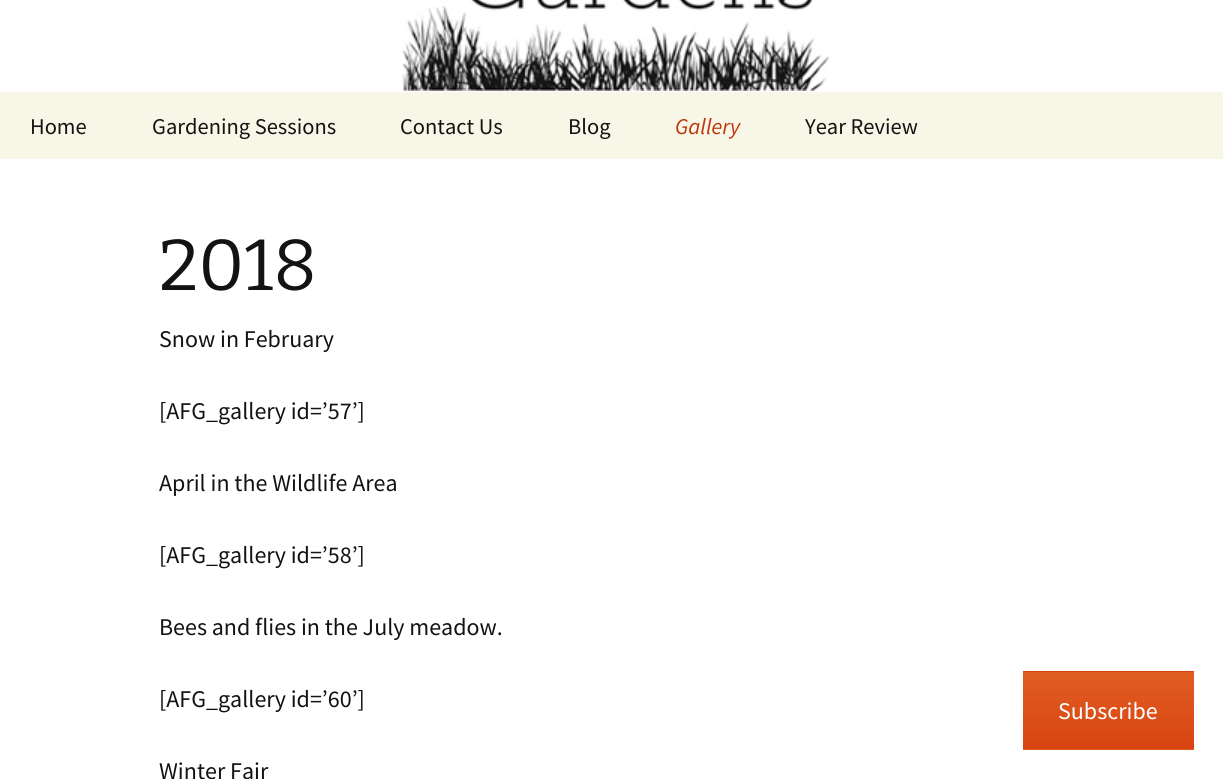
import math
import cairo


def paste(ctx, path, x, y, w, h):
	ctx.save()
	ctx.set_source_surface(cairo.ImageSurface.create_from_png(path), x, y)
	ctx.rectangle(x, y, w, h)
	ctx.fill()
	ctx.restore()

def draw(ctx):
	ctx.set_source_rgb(1, 1, 1)
	ctx.paint()
	paste(ctx, 'media/1.png', 402, 0, 428, 91)
	ctx.set_source_rgb(0.969, 0.961, 0.906)
	ctx.rectangle(0, 92, 1223, 67)
	ctx.fill()
	ctx.select_font_face('Source Sans Pro')
	ctx.set_font_size(22.5)
	ctx.set_source_rgb(0.078, 0.078, 0.071)
	for x, y, s in [
		(30, 134, 'Home'),
		(152, 134, 'Gardening Sessions'),
		(400, 134, 'Contact Us'),
		(568, 134, 'Blog'),
	]:
		ctx.move_to(x, y)
		ctx.show_text(s)
	ctx.select_font_face('Source Sans Pro', cairo.FONT_SLANT_ITALIC)
	ctx.set_source_rgb(0.737, 0.212, 0.039)
	ctx.move_to(675, 134)
	ctx.show_text('Gallery')
	ctx.select_font_face('Source Sans Pro')
	ctx.set_source_rgb(0.078, 0.078, 0.071)
	ctx.move_to(805, 134)
	ctx.show_text('Year Review')
	ctx.select_font_face('Bitter Thin')
	ctx.set_font_size(72)
	ctx.move_to(159, 290)
	ctx.show_text('2018')
	ctx.select_font_face('Source Sans Pro')
	ctx.set_font_size(24)
	for x, y, s in [
		(159, 347, 'Snow in February'),
		(159, 419, '[AFG_gallery id=’57’]'),
		(159, 491, 'April in the Wildlife Area'),
		(159, 563, '[AFG_gallery id=’58’]'),
		(159, 635, 'Bees and flies in the July meadow.'),
		(159, 707, '[AFG_gallery id=’60’]'),
		(159, 779, 'Winter Fair'),
	]:
		ctx.move_to(x, y)
		ctx.show_text(s)
	gradient = cairo.LinearGradient(1109, 596, 1109, 672)
	gradient.add_color_stop_rgba(0, 0.878, 0.365, 0.133, 1)
	gradient.add_color_stop_rgba(1, 0.851, 0.267, 0.071, 1)
	ctx.set_source(gradient)
	ctx.rectangle(1023, 671, 171, 1)
	ctx.fill()
	gradient = cairo.LinearGradient(1109, 672, 1109, 749)
	gradient.add_color_stop_rgba(0, 0.878, 0.365, 0.133, 1)
	gradient.add_color_stop_rgba(1, 0.851, 0.267, 0.071, 1)
	ctx.set_source(gradient)
	ctx.rectangle(1023, 672, 171, 77)
	ctx.fill()
	gradient = cairo.LinearGradient(1109, 749, 1109, 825)
	gradient.add_color_stop_rgba(0, 0.878, 0.365, 0.133, 1)
	gradient.add_color_stop_rgba(1, 0.851, 0.267, 0.071, 1)
	ctx.set_source(gradient)
	ctx.rectangle(1023, 749, 171, 1)
	ctx.fill()
	ctx.set_source_rgb(1, 1, 1)
	ctx.move_to(1058, 719)
	ctx.show_text('Subscribe')


surface = cairo.ImageSurface(cairo.FORMAT_RGB24, 1223, 779)
ctx = cairo.Context(surface)
options = cairo.FontOptions()
options.set_hint_metrics(cairo.HINT_METRICS_OFF)
options.set_hint_style(cairo.HINT_STYLE_NONE)
ctx.set_font_options(options)
ctx.set_miter_limit(4)
draw(ctx)
surface.write_to_png('image.png')
